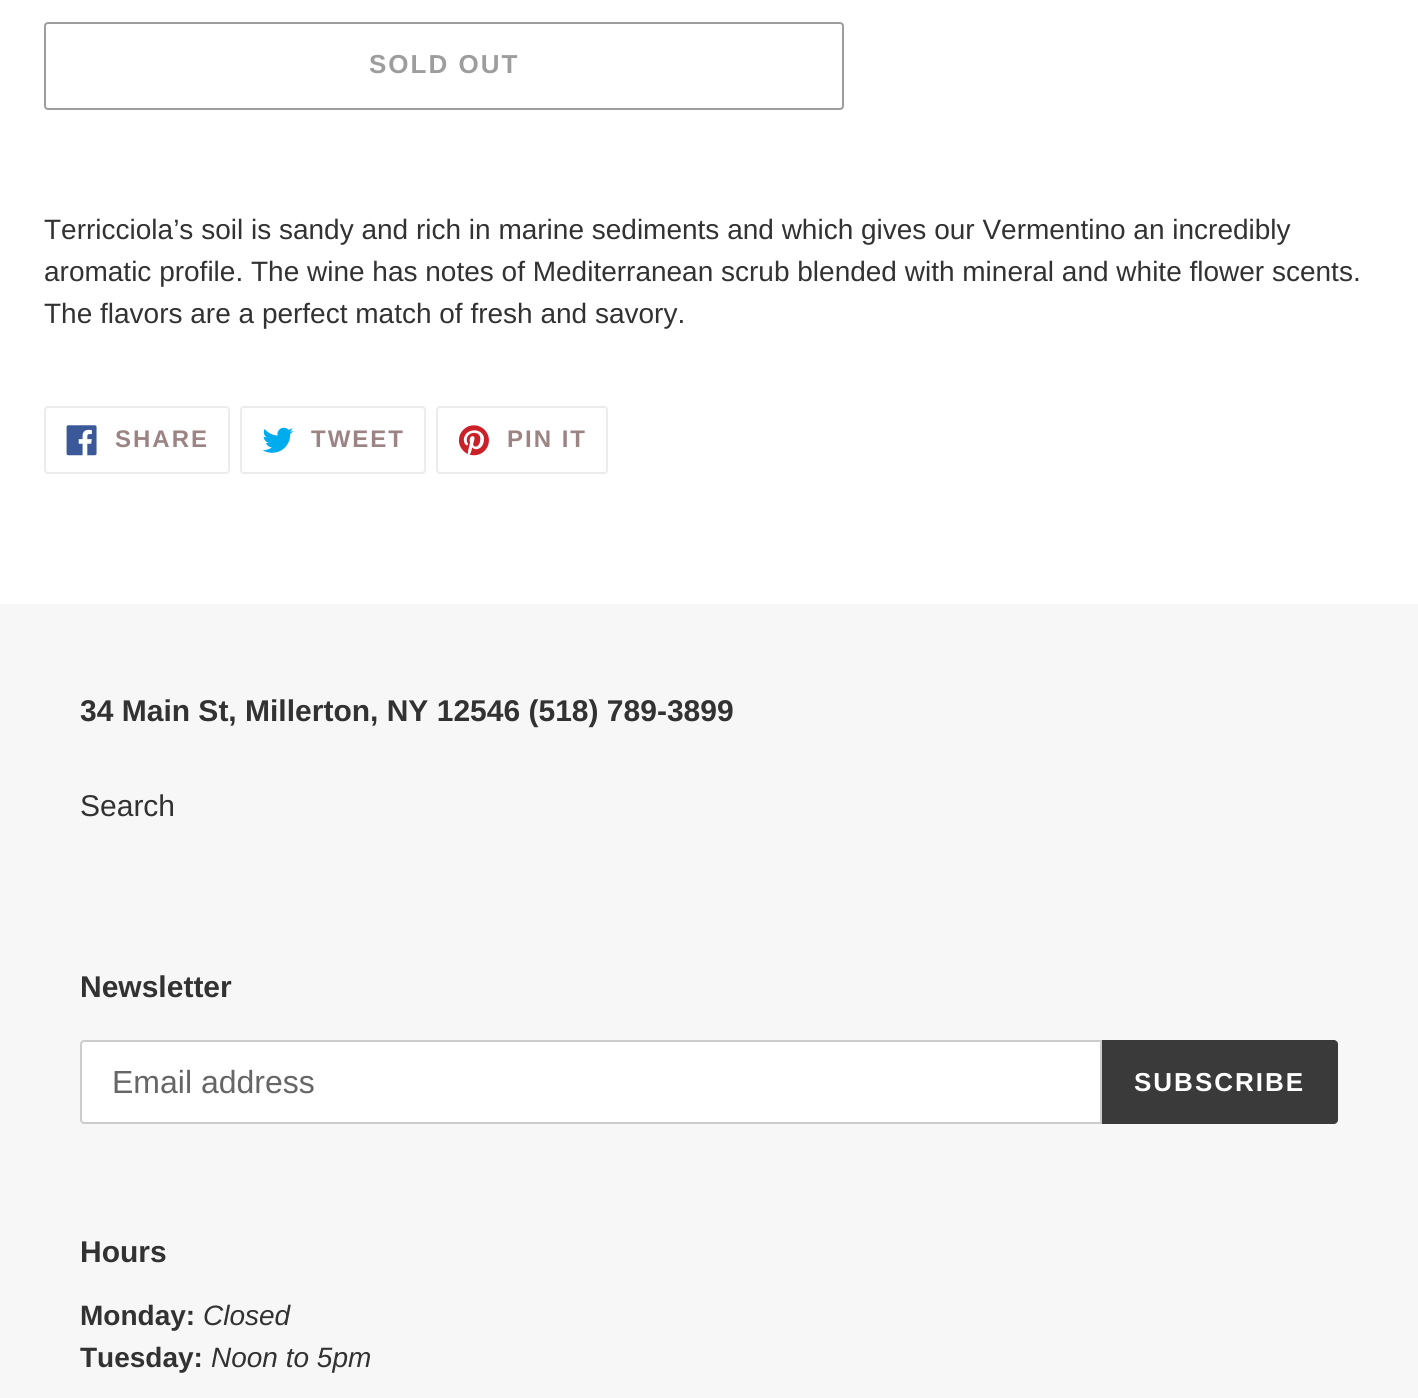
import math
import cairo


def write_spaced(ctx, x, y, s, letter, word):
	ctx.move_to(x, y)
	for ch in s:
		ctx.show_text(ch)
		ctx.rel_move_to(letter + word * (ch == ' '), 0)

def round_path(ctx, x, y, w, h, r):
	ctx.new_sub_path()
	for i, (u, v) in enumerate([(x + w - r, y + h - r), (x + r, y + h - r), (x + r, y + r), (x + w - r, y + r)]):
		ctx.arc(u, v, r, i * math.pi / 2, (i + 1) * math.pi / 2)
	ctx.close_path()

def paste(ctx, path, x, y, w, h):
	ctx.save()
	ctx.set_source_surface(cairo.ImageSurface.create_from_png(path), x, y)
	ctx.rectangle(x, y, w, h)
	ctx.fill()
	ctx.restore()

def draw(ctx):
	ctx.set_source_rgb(1, 1, 1)
	ctx.paint()
	round_path(ctx, 45, 23, 798, 86, 3)
	ctx.set_source_rgb(0.616, 0.616, 0.616)
	ctx.stroke()
	ctx.select_font_face('Liberation Sans', cairo.FONT_SLANT_NORMAL, cairo.FONT_WEIGHT_BOLD)
	ctx.set_font_size(26)
	write_spaced(ctx, 369, 73, 'SOLD OUT', 2, 0)
	ctx.select_font_face('Liberation Sans')
	ctx.set_font_size(28)
	ctx.set_source_rgb(0.2, 0.196, 0.196)
	for x, y, s in [
		(44, 239, 'Terricciola’s soil is sandy and rich in marine sediments and which gives our Vermentino an incredibly'),
		(44, 281, 'aromatic profile. The wine has notes of Mediterranean scrub blended with mineral and white flower scents.'),
		(44, 323, 'The flavors are a perfect match of fresh and savory.'),
	]:
		ctx.move_to(x, y)
		ctx.show_text(s)
	round_path(ctx, 45, 407, 184, 66, 3)
	ctx.set_source_rgb(0.922, 0.922, 0.922)
	ctx.stroke()
	paste(ctx, 'media/1.png', 66, 425, 31, 31)
	ctx.select_font_face('Liberation Sans', cairo.FONT_SLANT_NORMAL, cairo.FONT_WEIGHT_BOLD)
	ctx.set_font_size(24)
	ctx.set_source_rgb(0.612, 0.518, 0.518)
	write_spaced(ctx, 115, 447, 'SHARE', 2, 0)
	round_path(ctx, 241, 407, 184, 66, 3)
	ctx.set_source_rgb(0.922, 0.922, 0.922)
	ctx.stroke()
	paste(ctx, 'media/2.png', 262, 427, 32, 26)
	ctx.set_source_rgb(0.612, 0.518, 0.518)
	write_spaced(ctx, 311, 447, 'TWEET', 2, 0)
	round_path(ctx, 437, 407, 170, 66, 3)
	ctx.set_source_rgb(0.922, 0.922, 0.922)
	ctx.stroke()
	paste(ctx, 'media/3.png', 458, 425, 31, 31)
	ctx.set_source_rgb(0.612, 0.518, 0.518)
	write_spaced(ctx, 507, 447, 'PIN IT', 2, 0)
	ctx.set_source_rgb(0.965, 0.965, 0.965)
	ctx.rectangle(0, 604, 1418, 794)
	ctx.fill()
	ctx.set_font_size(30)
	ctx.set_source_rgb(0.2, 0.196, 0.196)
	ctx.move_to(80, 721)
	ctx.show_text('34 Main St, Millerton, NY 12546 (518) 789-3899')
	ctx.select_font_face('Liberation Sans')
	ctx.move_to(80, 816)
	ctx.show_text('Search')
	ctx.select_font_face('Liberation Sans', cairo.FONT_SLANT_NORMAL, cairo.FONT_WEIGHT_BOLD)
	ctx.move_to(80, 997)
	ctx.show_text('Newsletter')
	ctx.set_source_rgb(1, 1, 1)
	ctx.new_path()
	ctx.move_to(84, 1041)
	ctx.line_to(1101, 1041)
	ctx.line_to(1101, 1123)
	ctx.line_to(84, 1123)
	ctx.curve_to(82.5, 1123, 81, 1121.5, 81, 1120)
	ctx.line_to(81, 1044)
	ctx.curve_to(81, 1042.5, 82.5, 1041, 84, 1041)
	ctx.close_path()
	ctx.fill_preserve()
	ctx.set_source_rgb(0.8, 0.8, 0.8)
	ctx.stroke()
	ctx.select_font_face('Liberation Sans')
	ctx.set_font_size(32)
	ctx.set_source_rgb(0.4, 0.4, 0.4)
	ctx.move_to(112, 1093)
	ctx.show_text('Email address')
	ctx.set_source_rgb(0.227, 0.227, 0.227)
	ctx.new_path()
	ctx.move_to(1102, 1040)
	ctx.line_to(1334, 1040)
	ctx.curve_to(1336, 1040, 1338, 1042, 1338, 1044)
	ctx.line_to(1338, 1120)
	ctx.curve_to(1338, 1122, 1336, 1124, 1334, 1124)
	ctx.line_to(1102, 1124)
	ctx.close_path()
	ctx.fill()
	ctx.select_font_face('Liberation Sans', cairo.FONT_SLANT_NORMAL, cairo.FONT_WEIGHT_BOLD)
	ctx.set_font_size(26)
	ctx.set_source_rgb(1, 1, 1)
	write_spaced(ctx, 1134, 1091, 'SUBSCRIBE', 2, 0)
	ctx.set_font_size(30)
	ctx.set_source_rgb(0.2, 0.196, 0.196)
	ctx.move_to(80, 1262)
	ctx.show_text('Hours')
	ctx.set_font_size(28)
	ctx.move_to(80, 1325)
	ctx.show_text('Monday:')
	ctx.select_font_face('Liberation Sans', cairo.FONT_SLANT_ITALIC)
	ctx.move_to(203, 1325)
	ctx.show_text('Closed')
	ctx.select_font_face('Liberation Sans', cairo.FONT_SLANT_NORMAL, cairo.FONT_WEIGHT_BOLD)
	ctx.move_to(80, 1367)
	ctx.show_text('Tuesday:')
	ctx.select_font_face('Liberation Sans', cairo.FONT_SLANT_ITALIC)
	ctx.move_to(211, 1367)
	ctx.show_text('Noon to 5pm')


surface = cairo.ImageSurface(cairo.FORMAT_RGB24, 1418, 1398)
ctx = cairo.Context(surface)
options = cairo.FontOptions()
options.set_hint_metrics(cairo.HINT_METRICS_OFF)
options.set_hint_style(cairo.HINT_STYLE_NONE)
ctx.set_font_options(options)
ctx.set_miter_limit(4)
draw(ctx)
surface.write_to_png('image.png')
